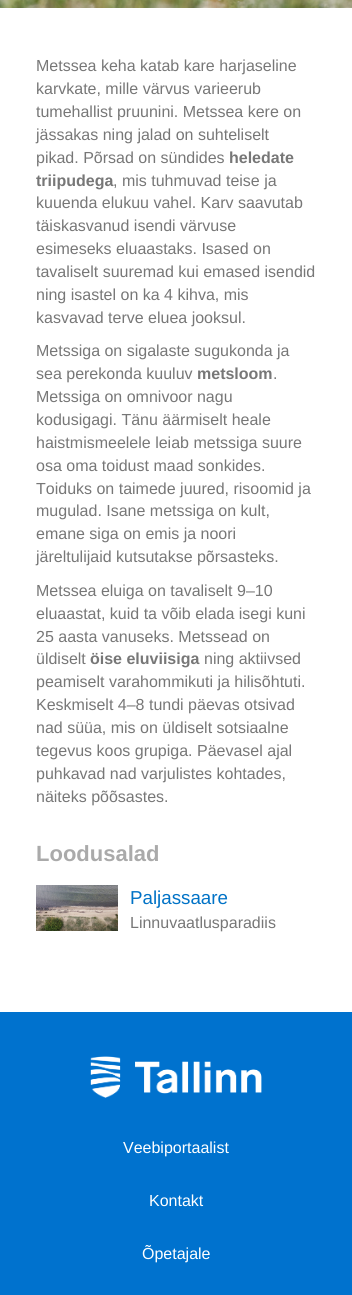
import math
import cairo


def paste(ctx, path, x, y, w, h):
	ctx.save()
	ctx.set_source_surface(cairo.ImageSurface.create_from_png(path), x, y)
	ctx.rectangle(x, y, w, h)
	ctx.fill()
	ctx.restore()

def draw(ctx):
	ctx.set_source_rgb(1, 1, 1)
	ctx.paint()
	paste(ctx, 'media/1.png', 0, 0, 352, 8)
	ctx.select_font_face('Liberation Sans')
	ctx.set_font_size(16)
	ctx.set_source_rgb(0.467, 0.467, 0.467)
	for x, y, s in [
		(36, 71, 'Metssea keha katab kare harjaseline'),
		(36, 94, 'karvkate, mille värvus varieerub'),
		(36, 117, 'tumehallist pruunini. Metssea kere on'),
		(36, 140, 'jässakas ning jalad on suhteliselt'),
		(36, 163, 'pikad. Põrsad on sündides'),
	]:
		ctx.move_to(x, y)
		ctx.show_text(s)
	ctx.select_font_face('Liberation Sans', cairo.FONT_SLANT_NORMAL, cairo.FONT_WEIGHT_BOLD)
	ctx.move_to(229, 163)
	ctx.show_text('heledate')
	ctx.move_to(36, 186)
	ctx.show_text('triipudega')
	ctx.select_font_face('Liberation Sans')
	for x, y, s in [
		(113, 186, ', mis tuhmuvad teise ja'),
		(36, 208, 'kuuenda elukuu vahel. Karv saavutab'),
		(36, 231, 'täiskasvanud isendi värvuse'),
		(36, 254, 'esimeseks eluaastaks. Isased on'),
		(36, 277, 'tavaliselt suuremad kui emased isendid'),
		(36, 300, 'ning isastel on ka 4 kihva, mis'),
		(36, 323, 'kasvavad terve eluea jooksul.'),
		(36, 356, 'Metssiga on sigalaste sugukonda ja'),
		(36, 379, 'sea perekonda kuuluv'),
	]:
		ctx.move_to(x, y)
		ctx.show_text(s)
	ctx.select_font_face('Liberation Sans', cairo.FONT_SLANT_NORMAL, cairo.FONT_WEIGHT_BOLD)
	ctx.move_to(197, 379)
	ctx.show_text('metsloom')
	ctx.select_font_face('Liberation Sans')
	for x, y, s in [
		(273, 379, '.'),
		(36, 402, 'Metssiga on omnivoor nagu'),
		(36, 425, 'kodusigagi. Tänu äärmiselt heale'),
		(36, 448, 'haistmismeelele leiab metssiga suure'),
		(36, 471, 'osa oma toidust maad sonkides.'),
		(36, 494, 'Toiduks on taimede juured, risoomid ja'),
		(36, 516, 'mugulad. Isane metssiga on kult,'),
		(36, 539, 'emane siga on emis ja noori'),
		(36, 562, 'järeltulijaid kutsutakse põrsasteks.'),
		(36, 596, 'Metssea eluiga on tavaliselt 9–10'),
		(36, 619, 'eluaastat, kuid ta võib elada isegi kuni'),
		(36, 642, '25 aasta vanuseks. Metssead on'),
		(36, 664, 'üldiselt'),
	]:
		ctx.move_to(x, y)
		ctx.show_text(s)
	ctx.select_font_face('Liberation Sans', cairo.FONT_SLANT_NORMAL, cairo.FONT_WEIGHT_BOLD)
	ctx.move_to(90, 664)
	ctx.show_text('öise eluviisiga')
	ctx.select_font_face('Liberation Sans')
	for x, y, s in [
		(204, 664, 'ning aktiivsed'),
		(36, 687, 'peamiselt varahommikuti ja hilisõhtuti.'),
		(36, 710, 'Keskmiselt 4–8 tundi päevas otsivad'),
		(36, 733, 'nad süüa, mis on üldiselt sotsiaalne'),
		(36, 756, 'tegevus koos grupiga. Päevasel ajal'),
		(36, 779, 'puhkavad nad varjulistes kohtades,'),
		(36, 802, 'näiteks põõsastes.'),
	]:
		ctx.move_to(x, y)
		ctx.show_text(s)
	ctx.select_font_face('Liberation Sans', cairo.FONT_SLANT_NORMAL, cairo.FONT_WEIGHT_BOLD)
	ctx.set_font_size(22)
	ctx.set_source_rgb(0.667, 0.667, 0.667)
	ctx.move_to(36, 861)
	ctx.show_text('Loodusalad')
	paste(ctx, 'media/2.png', 36, 885, 82, 46)
	ctx.select_font_face('Liberation Sans')
	ctx.set_font_size(18.75)
	ctx.set_source_rgb(0, 0.447, 0.776)
	ctx.move_to(130, 904)
	ctx.show_text('Paljassaare')
	ctx.set_font_size(16)
	ctx.set_source_rgb(0.467, 0.467, 0.467)
	ctx.move_to(130, 928)
	ctx.show_text('Linnuvaatlusparadiis')
	ctx.set_source_rgb(0, 0.447, 0.808)
	ctx.rectangle(0, 1012, 352, 283)
	ctx.fill()
	paste(ctx, 'media/3.png', 90, 1056, 172, 42)
	ctx.set_source_rgb(1, 1, 1)
	for x, y, s in [
		(123, 1153, 'Veebiportaalist'),
		(149, 1206, 'Kontakt'),
		(142, 1259, 'Õpetajale'),
	]:
		ctx.move_to(x, y)
		ctx.show_text(s)


surface = cairo.ImageSurface(cairo.FORMAT_RGB24, 352, 1295)
ctx = cairo.Context(surface)
options = cairo.FontOptions()
options.set_hint_metrics(cairo.HINT_METRICS_OFF)
options.set_hint_style(cairo.HINT_STYLE_NONE)
ctx.set_font_options(options)
ctx.set_miter_limit(4)
draw(ctx)
surface.write_to_png('image.png')
